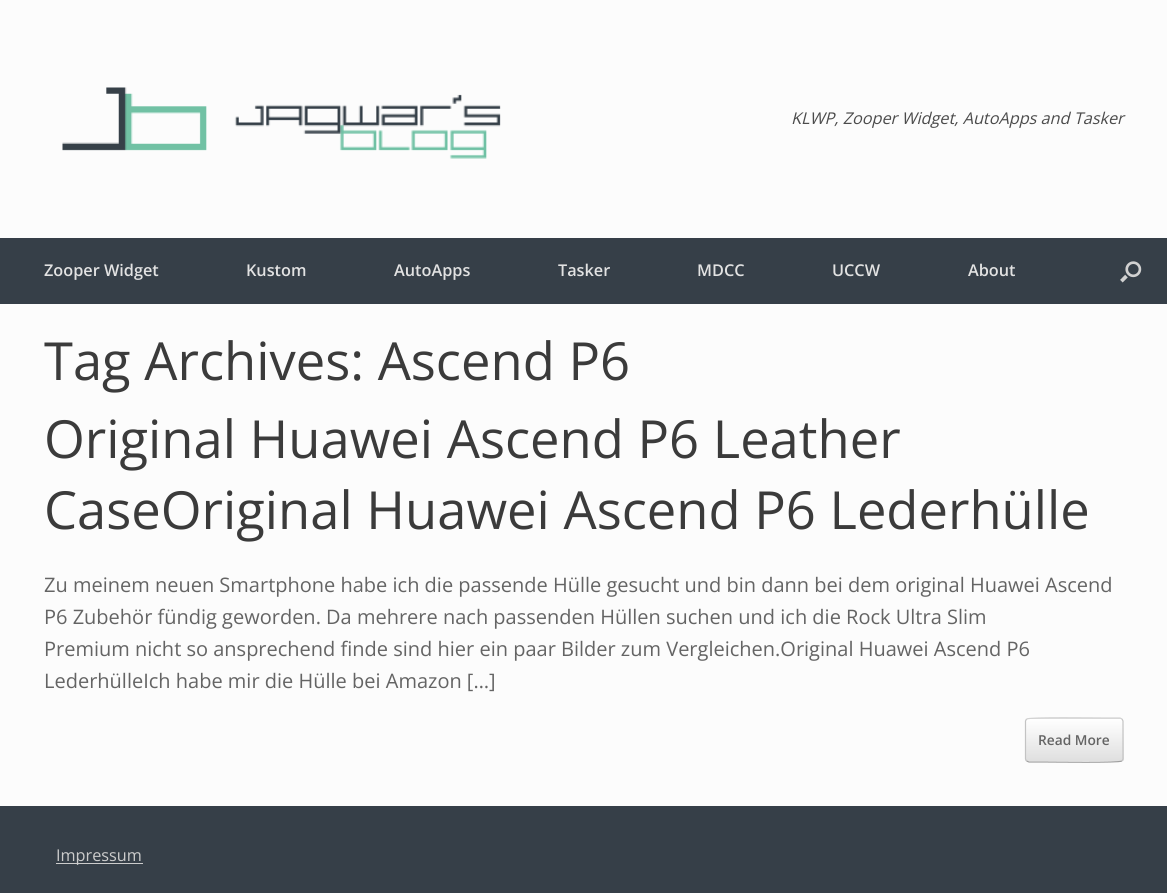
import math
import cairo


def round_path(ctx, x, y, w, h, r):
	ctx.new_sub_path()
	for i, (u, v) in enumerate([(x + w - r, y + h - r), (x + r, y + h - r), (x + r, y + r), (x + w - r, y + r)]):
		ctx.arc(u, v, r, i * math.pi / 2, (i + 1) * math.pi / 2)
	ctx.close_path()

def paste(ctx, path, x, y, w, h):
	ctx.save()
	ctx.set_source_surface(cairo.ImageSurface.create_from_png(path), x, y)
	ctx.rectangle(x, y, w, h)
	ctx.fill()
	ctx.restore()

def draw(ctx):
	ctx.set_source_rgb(0.212, 0.247, 0.282)
	ctx.paint()
	ctx.set_source_rgb(0.988, 0.988, 0.988)
	ctx.rectangle(0, 0, 1167, 238)
	ctx.fill()
	paste(ctx, 'media/1.png', 62, 87, 439, 72)
	ctx.select_font_face('Open Sans', cairo.FONT_SLANT_ITALIC)
	ctx.set_font_size(16.25)
	ctx.set_source_rgb(0.294, 0.294, 0.294)
	ctx.move_to(791, 124)
	ctx.show_text('KLWP, Zooper Widget, AutoApps and Tasker')
	ctx.select_font_face('Open Sans SemiBold')
	ctx.set_source_rgb(0.886, 0.886, 0.886)
	for x, y, s in [
		(44, 276, 'Zooper Widget'),
		(246, 276, 'Kustom'),
		(394, 276, 'AutoApps'),
		(558, 276, 'Tasker'),
		(697, 276, 'MDCC'),
		(832, 276, 'UCCW'),
		(968, 276, 'About'),
	]:
		ctx.move_to(x, y)
		ctx.show_text(s)
	paste(ctx, 'media/2.png', 1120, 261, 22, 22)
	ctx.set_source_rgb(0.988, 0.988, 0.988)
	ctx.rectangle(0, 304, 1167, 502)
	ctx.fill()
	ctx.select_font_face('Open Sans')
	ctx.set_font_size(52.5)
	ctx.set_source_rgb(0.231, 0.231, 0.231)
	for x, y, s in [
		(44, 380, 'Tag Archives: Ascend P6'),
		(44, 458, 'Original Huawei Ascend P6 Leather'),
		(44, 529, 'CaseOriginal Huawei Ascend P6 Lederhülle'),
	]:
		ctx.move_to(x, y)
		ctx.show_text(s)
	ctx.set_font_size(20)
	ctx.set_source_rgb(0.392, 0.392, 0.392)
	for x, y, s in [
		(44, 592, 'Zu meinem neuen Smartphone habe ich die passende Hülle gesucht und bin dann bei dem original Huawei Ascend'),
		(44, 624, 'P6 Zubehör fündig geworden. Da mehrere nach passenden Hüllen suchen und ich die Rock Ultra Slim'),
		(44, 656, 'Premium nicht so ansprechend finde sind hier ein paar Bilder zum Vergleichen.Original Huawei Ascend P6'),
		(44, 688, 'LederhülleIch habe mir die Hülle bei Amazon […]'),
	]:
		ctx.move_to(x, y)
		ctx.show_text(s)
	ctx.save()
	round_path(ctx, 1025, 718, 99, 45, 4)
	ctx.clip()
	gradient = cairo.LinearGradient(1026, 719, 1026, 676)
	gradient.add_color_stop_rgba(0, 0.875, 0.875, 0.875, 1)
	gradient.add_color_stop_rgba(1, 1, 1, 1, 1)
	ctx.set_source(gradient)
	ctx.rectangle(1025, 718, 99, 1)
	ctx.fill()
	gradient = cairo.LinearGradient(1026, 761, 1026, 719)
	gradient.add_color_stop_rgba(0, 0.875, 0.875, 0.875, 1)
	gradient.add_color_stop_rgba(1, 1, 1, 1, 1)
	ctx.set_source(gradient)
	ctx.rectangle(1025, 719, 99, 42)
	ctx.fill()
	gradient = cairo.LinearGradient(1026, 804, 1026, 761)
	gradient.add_color_stop_rgba(0, 0.875, 0.875, 0.875, 1)
	gradient.add_color_stop_rgba(1, 1, 1, 1, 1)
	ctx.set_source(gradient)
	ctx.rectangle(1025, 761, 99, 2)
	ctx.fill()
	ctx.restore()
	ctx.new_path()
	ctx.move_to(1026.5, 719)
	ctx.line_to(1027, 719)
	ctx.curve_to(1029, 717, 1096.5, 718, 1105, 718)
	ctx.line_to(1120, 718)
	ctx.line_to(1122, 719)
	ctx.set_source_rgb(0.824, 0.824, 0.824)
	ctx.set_line_width(1.2)
	ctx.stroke()
	ctx.new_path()
	ctx.move_to(1122, 719)
	ctx.line_to(1123, 721)
	ctx.line_to(1123, 759)
	ctx.line_to(1122, 761)
	ctx.set_source_rgb(0.765, 0.765, 0.765)
	ctx.stroke()
	ctx.new_path()
	ctx.move_to(1122, 761)
	ctx.curve_to(1120, 763, 1052.5, 762, 1044, 762)
	ctx.line_to(1029, 762)
	ctx.line_to(1026.5, 761)
	ctx.set_source_rgb(0.624, 0.624, 0.624)
	ctx.stroke()
	ctx.new_path()
	ctx.move_to(1026.5, 761)
	ctx.line_to(1025.5, 759)
	ctx.line_to(1025.5, 721)
	ctx.line_to(1026.5, 719)
	ctx.set_source_rgb(0.765, 0.765, 0.765)
	ctx.stroke()
	ctx.select_font_face('Open Sans SemiBold')
	ctx.set_font_size(13.75)
	ctx.set_source_rgb(0.392, 0.392, 0.392)
	ctx.move_to(1038, 745)
	ctx.show_text('Read More')
	ctx.set_source_rgb(0.8, 0.8, 0.8)
	ctx.rectangle(56, 863, 87, 1)
	ctx.fill()
	ctx.select_font_face('Open Sans')
	ctx.set_font_size(16.25)
	ctx.move_to(56, 861)
	ctx.show_text('Impressum')


surface = cairo.ImageSurface(cairo.FORMAT_RGB24, 1167, 893)
ctx = cairo.Context(surface)
options = cairo.FontOptions()
options.set_hint_metrics(cairo.HINT_METRICS_OFF)
options.set_hint_style(cairo.HINT_STYLE_NONE)
ctx.set_font_options(options)
ctx.set_miter_limit(4)
draw(ctx)
surface.write_to_png('image.png')
